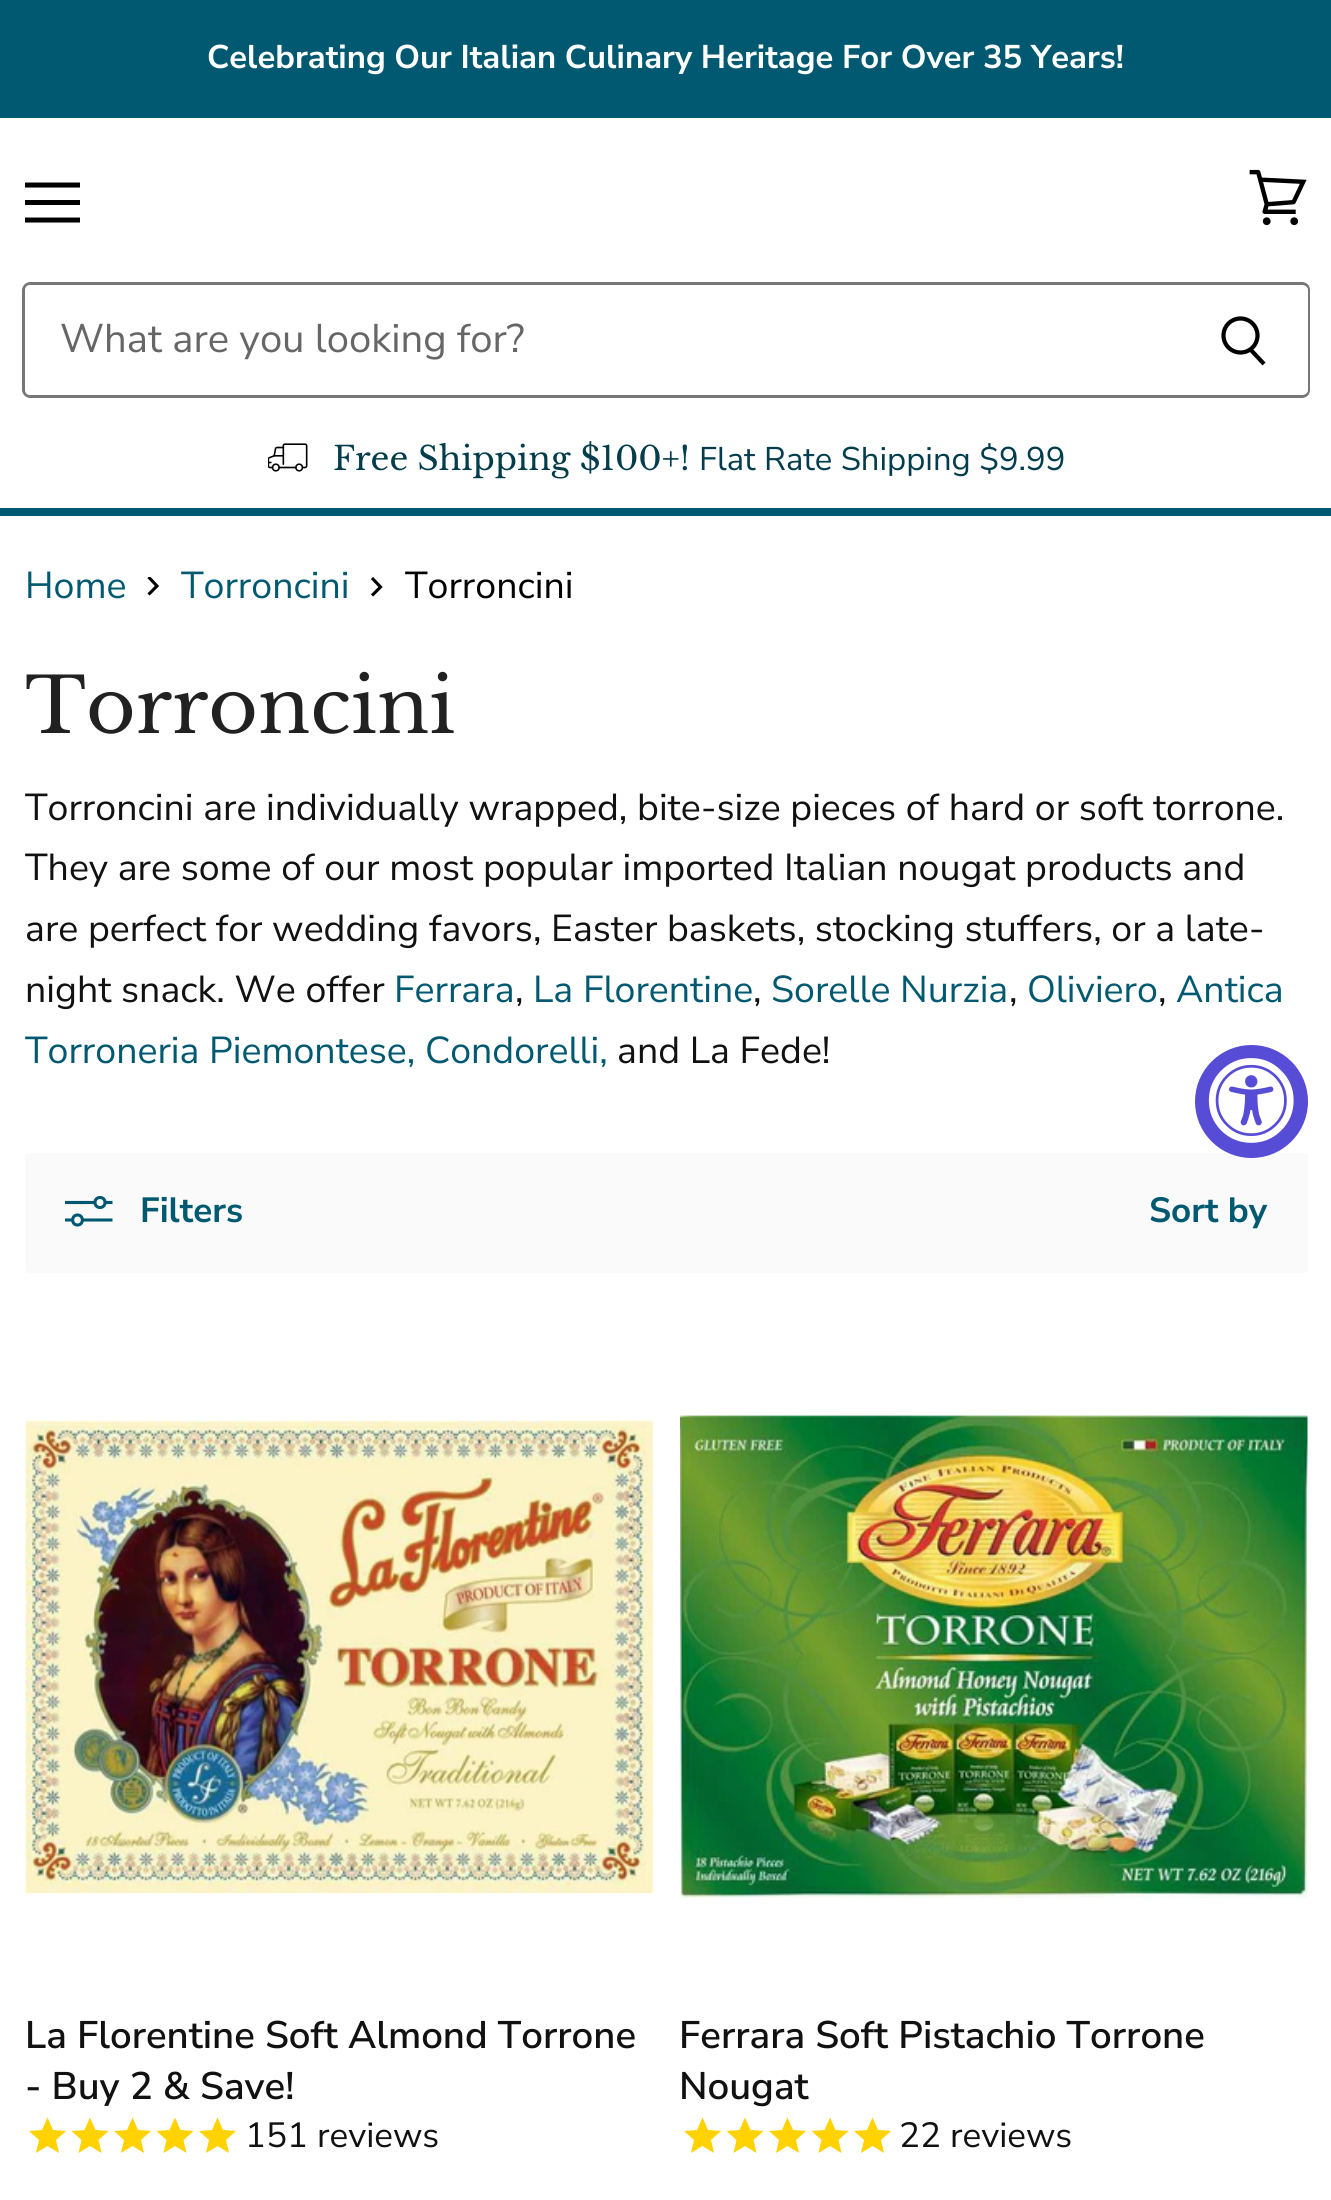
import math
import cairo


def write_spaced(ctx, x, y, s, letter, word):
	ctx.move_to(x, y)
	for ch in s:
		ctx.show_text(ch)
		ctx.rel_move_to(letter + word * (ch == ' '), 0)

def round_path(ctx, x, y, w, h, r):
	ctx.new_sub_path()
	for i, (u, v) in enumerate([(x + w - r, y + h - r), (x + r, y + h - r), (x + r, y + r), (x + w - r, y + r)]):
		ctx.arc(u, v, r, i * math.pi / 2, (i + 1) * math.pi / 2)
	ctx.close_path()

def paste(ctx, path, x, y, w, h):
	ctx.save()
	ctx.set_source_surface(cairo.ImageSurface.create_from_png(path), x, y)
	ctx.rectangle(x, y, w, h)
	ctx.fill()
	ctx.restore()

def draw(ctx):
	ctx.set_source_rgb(1, 1, 1)
	ctx.paint()
	ctx.set_source_rgb(0, 0.349, 0.443)
	ctx.rectangle(0, 0, 1331, 118)
	ctx.fill()
	ctx.select_font_face('Nunito Sans', cairo.FONT_SLANT_NORMAL, cairo.FONT_WEIGHT_BOLD)
	ctx.set_font_size(32.8)
	ctx.set_source_rgb(1, 1, 1)
	write_spaced(ctx, 207, 68, 'Celebrating Our Italian Culinary Heritage For Over 35 Years!', 0, -0.25)
	ctx.set_source_rgb(0, 0.349, 0.443)
	ctx.rectangle(0, 508, 1331, 8)
	ctx.fill()
	ctx.new_path()
	ctx.move_to(77.5, 185)
	ctx.line_to(27.5, 185)
	ctx.set_source_rgb(0, 0, 0)
	ctx.set_line_width(5)
	ctx.set_line_cap(cairo.LINE_CAP_SQUARE)
	ctx.set_line_join(cairo.LINE_JOIN_ROUND)
	ctx.stroke()
	ctx.rectangle(25, 200, 55, 5)
	ctx.fill()
	ctx.new_path()
	ctx.move_to(77.5, 220)
	ctx.line_to(27.5, 220)
	ctx.stroke()
	paste(ctx, 'media/1.png', 1249, 169, 58, 57)
	ctx.set_source_rgb(0.467, 0.467, 0.467)
	ctx.set_fill_rule(cairo.FILL_RULE_EVEN_ODD)
	ctx.new_path()
	ctx.move_to(30, 282)
	ctx.line_to(1178, 282)
	ctx.line_to(1178, 398)
	ctx.line_to(30, 398)
	ctx.curve_to(26, 398, 22, 394, 22, 390)
	ctx.line_to(22, 290)
	ctx.curve_to(22, 286, 26, 282, 30, 282)
	ctx.close_path()
	ctx.move_to(30, 285)
	ctx.line_to(1178, 285)
	ctx.line_to(1178, 395)
	ctx.line_to(30, 395)
	ctx.curve_to(27, 395, 25, 393, 25, 390)
	ctx.line_to(25, 290)
	ctx.curve_to(25, 287, 27, 285, 30, 285)
	ctx.close_path()
	ctx.fill()
	ctx.select_font_face('Nunito Sans')
	ctx.set_font_size(40)
	ctx.set_source_rgb(0.4, 0.4, 0.4)
	ctx.move_to(60, 352)
	ctx.show_text('What are you looking for?')
	ctx.set_source_rgb(0.467, 0.467, 0.467)
	ctx.new_path()
	ctx.move_to(1178, 282)
	ctx.line_to(1302, 282)
	ctx.curve_to(1307, 282, 1310, 286, 1310, 290)
	ctx.line_to(1310, 390)
	ctx.curve_to(1310, 394, 1307, 398, 1302, 398)
	ctx.line_to(1178, 398)
	ctx.close_path()
	ctx.move_to(1178, 285)
	ctx.line_to(1302, 285)
	ctx.curve_to(1305, 285, 1308, 287, 1308, 290)
	ctx.line_to(1308, 390)
	ctx.curve_to(1308, 393, 1305, 395, 1302, 395)
	ctx.line_to(1178, 395)
	ctx.close_path()
	ctx.fill()
	ctx.new_path()
	ctx.move_to(1264, 364)
	ctx.line_to(1250, 349)
	ctx.set_source_rgb(0, 0, 0)
	ctx.set_line_width(4.2)
	ctx.set_line_cap(cairo.LINE_CAP_BUTT)
	ctx.set_line_join(cairo.LINE_JOIN_MITER)
	ctx.stroke()
	ctx.arc(1240.5, 335.5, 17, 0, 2 * math.pi)
	ctx.stroke()
	paste(ctx, 'media/2.png', 268, 443, 40, 29)
	ctx.select_font_face('Libre Baskerville')
	ctx.set_font_size(32.8)
	ctx.set_source_rgb(0.012, 0.239, 0.302)
	ctx.move_to(333, 470)
	ctx.show_text('Free Shipping $100+!')
	ctx.select_font_face('Nunito Sans')
	ctx.move_to(699, 470)
	ctx.show_text('Flat Rate Shipping $9.99')
	ctx.set_font_size(37.5)
	ctx.set_source_rgb(0, 0.349, 0.443)
	ctx.move_to(25, 598)
	ctx.show_text('Home')
	ctx.save()
	ctx.set_fill_rule(cairo.FILL_RULE_WINDING)
	ctx.new_path()
	ctx.move_to(147.5, 597)
	ctx.line_to(147.5, 577)
	ctx.line_to(160, 577)
	ctx.line_to(160, 597)
	ctx.close_path()
	ctx.clip()
	ctx.new_path()
	ctx.move_to(148.5, 594.5)
	ctx.line_to(157, 586)
	ctx.line_to(148.5, 577)
	ctx.set_source_rgb(0, 0, 0)
	ctx.set_line_width(3.1)
	ctx.stroke()
	ctx.restore()
	ctx.move_to(181, 598)
	ctx.show_text('Torroncini')
	ctx.save()
	ctx.set_fill_rule(cairo.FILL_RULE_WINDING)
	ctx.new_path()
	ctx.move_to(371, 597)
	ctx.line_to(371, 577)
	ctx.line_to(383.5, 577)
	ctx.line_to(383.5, 597)
	ctx.close_path()
	ctx.clip()
	ctx.new_path()
	ctx.move_to(372, 595.5)
	ctx.line_to(380.5, 587)
	ctx.line_to(372, 578)
	ctx.set_source_rgb(0, 0, 0)
	ctx.set_line_width(3.1)
	ctx.stroke()
	ctx.restore()
	ctx.set_source_rgb(0, 0, 0)
	ctx.move_to(405, 598)
	ctx.show_text('Torroncini')
	ctx.select_font_face('Libre Baskerville')
	ctx.set_font_size(76)
	ctx.set_source_rgb(0.129, 0.129, 0.129)
	ctx.move_to(25, 733)
	ctx.show_text('Torroncini')
	ctx.select_font_face('Nunito Sans')
	ctx.set_font_size(37.5)
	ctx.set_source_rgb(0.067, 0.067, 0.067)
	for x, y, s in [
		(25, 820, 'Torroncini are individually wrapped, bite-size pieces of hard or soft torrone.'),
		(25, 880, 'They are some of our most popular imported Italian nougat products and'),
		(25, 941, 'are perfect for wedding favors, Easter baskets, stocking stuffers, or a late-'),
		(25, 1002, 'night snack. We offer'),
	]:
		ctx.move_to(x, y)
		ctx.show_text(s)
	ctx.set_source_rgb(0, 0.349, 0.443)
	ctx.move_to(394, 1002)
	ctx.show_text('Ferrara')
	ctx.set_source_rgb(0.067, 0.067, 0.067)
	ctx.move_to(515, 1002)
	ctx.show_text(',')
	ctx.set_source_rgb(0, 0.349, 0.443)
	ctx.move_to(533, 1002)
	ctx.show_text('La Florentine')
	ctx.set_source_rgb(0.067, 0.067, 0.067)
	ctx.move_to(753, 1002)
	ctx.show_text(',')
	ctx.set_source_rgb(0, 0.349, 0.443)
	ctx.move_to(771, 1002)
	ctx.show_text('Sorelle Nurzia')
	ctx.set_source_rgb(0.067, 0.067, 0.067)
	ctx.move_to(1009, 1002)
	ctx.show_text(',')
	ctx.set_source_rgb(0, 0.349, 0.443)
	ctx.move_to(1027, 1002)
	ctx.show_text('Oliviero')
	ctx.set_source_rgb(0.067, 0.067, 0.067)
	ctx.move_to(1158, 1002)
	ctx.show_text(',')
	ctx.set_source_rgb(0, 0.349, 0.443)
	ctx.move_to(1176, 1002)
	ctx.show_text('Antica')
	ctx.move_to(25, 1063)
	ctx.show_text('Torroneria Piemontese, Condorelli,')
	ctx.set_source_rgb(0.067, 0.067, 0.067)
	ctx.move_to(617, 1063)
	ctx.show_text('and La Fede!')
	ctx.set_source_rgb(0.98, 0.98, 0.98)
	round_path(ctx, 25, 1153, 1283, 120, 4)
	ctx.fill()
	ctx.arc(100, 1202.5, 5, 0, 2 * math.pi)
	ctx.set_source_rgb(0, 0.349, 0.443)
	ctx.set_line_width(3.1)
	ctx.stroke()
	ctx.new_path()
	ctx.move_to(65, 1202.5)
	ctx.line_to(95, 1202.5)
	ctx.move_to(112.5, 1202.5)
	ctx.line_to(105, 1202.5)
	ctx.move_to(77.5, 1215)
	ctx.curve_to(71, 1215, 71, 1225, 77.5, 1225)
	ctx.curve_to(84, 1225, 84, 1215, 77.5, 1215)
	ctx.close_path()
	ctx.move_to(112.5, 1220)
	ctx.line_to(82.5, 1220)
	ctx.move_to(65, 1220)
	ctx.line_to(72.5, 1220)
	ctx.stroke()
	ctx.select_font_face('Nunito Sans', cairo.FONT_SLANT_NORMAL, cairo.FONT_WEIGHT_BOLD)
	ctx.set_font_size(35)
	ctx.move_to(140, 1222)
	ctx.show_text('Filters')
	ctx.move_to(1149, 1222)
	ctx.show_text('Sort by')
	paste(ctx, 'media/3.png', 25, 1420, 629, 474)
	ctx.select_font_face('Nunito Sans SemiBold')
	ctx.set_font_size(38.4)
	ctx.set_source_rgb(0.067, 0.067, 0.067)
	ctx.move_to(25, 2048)
	ctx.show_text('La Florentine Soft Almond Torrone')
	ctx.move_to(25, 2099)
	ctx.show_text('- Buy 2 & Save!')
	ctx.set_source_rgb(1, 0.824, 0)
	ctx.set_fill_rule(cairo.FILL_RULE_WINDING)
	ctx.new_path()
	ctx.move_to(47.5, 2146)
	ctx.line_to(36, 2153)
	ctx.line_to(39, 2140)
	ctx.line_to(29, 2131)
	ctx.line_to(42, 2130)
	ctx.line_to(47.5, 2117.5)
	ctx.line_to(53, 2130)
	ctx.line_to(66, 2131)
	ctx.line_to(56, 2140)
	ctx.line_to(59, 2153)
	ctx.close_path()
	ctx.fill()
	ctx.new_path()
	ctx.move_to(90, 2146)
	ctx.line_to(78.5, 2153)
	ctx.line_to(81.5, 2140)
	ctx.line_to(71.5, 2131)
	ctx.line_to(84.5, 2130)
	ctx.line_to(90, 2117.5)
	ctx.line_to(95.5, 2130)
	ctx.line_to(108.5, 2131)
	ctx.line_to(98.5, 2140)
	ctx.line_to(101.5, 2153)
	ctx.close_path()
	ctx.fill()
	ctx.new_path()
	ctx.move_to(132.5, 2146)
	ctx.line_to(121, 2153)
	ctx.line_to(124, 2140)
	ctx.line_to(114, 2131)
	ctx.line_to(127, 2130)
	ctx.line_to(132.5, 2117.5)
	ctx.line_to(138, 2130)
	ctx.line_to(151, 2131)
	ctx.line_to(141, 2140)
	ctx.line_to(144, 2153)
	ctx.close_path()
	ctx.fill()
	ctx.new_path()
	ctx.move_to(175, 2146)
	ctx.line_to(163.5, 2153)
	ctx.line_to(166.5, 2140)
	ctx.line_to(156.5, 2131)
	ctx.line_to(169.5, 2130)
	ctx.line_to(175, 2117.5)
	ctx.line_to(180.5, 2130)
	ctx.line_to(193.5, 2131)
	ctx.line_to(183.5, 2140)
	ctx.line_to(186.5, 2153)
	ctx.close_path()
	ctx.fill()
	ctx.new_path()
	ctx.move_to(217.5, 2146)
	ctx.line_to(206, 2153)
	ctx.line_to(209, 2140)
	ctx.line_to(199, 2131)
	ctx.line_to(212, 2130)
	ctx.line_to(217.5, 2117.5)
	ctx.line_to(223, 2130)
	ctx.line_to(236, 2131)
	ctx.line_to(226, 2140)
	ctx.line_to(229, 2153)
	ctx.close_path()
	ctx.fill()
	ctx.select_font_face('Nunito Sans')
	ctx.set_font_size(35)
	ctx.set_source_rgb(0.067, 0.067, 0.067)
	ctx.move_to(245, 2147)
	ctx.show_text('151 reviews')
	paste(ctx, 'media/4.png', 680, 1415, 628, 483)
	ctx.select_font_face('Nunito Sans SemiBold')
	ctx.set_font_size(38.4)
	ctx.move_to(679, 2048)
	ctx.show_text('Ferrara Soft Pistachio Torrone')
	ctx.move_to(679, 2099)
	ctx.show_text('Nougat')
	ctx.set_source_rgb(1, 0.824, 0)
	ctx.new_path()
	ctx.move_to(702.5, 2146)
	ctx.line_to(691, 2153)
	ctx.line_to(694, 2140)
	ctx.line_to(684, 2131)
	ctx.line_to(697, 2130)
	ctx.line_to(702.5, 2117.5)
	ctx.line_to(708, 2130)
	ctx.line_to(721, 2131)
	ctx.line_to(711, 2140)
	ctx.line_to(714, 2153)
	ctx.close_path()
	ctx.fill()
	ctx.new_path()
	ctx.move_to(745, 2146)
	ctx.line_to(733.5, 2153)
	ctx.line_to(736.5, 2140)
	ctx.line_to(726.5, 2131)
	ctx.line_to(739.5, 2130)
	ctx.line_to(745, 2117.5)
	ctx.line_to(750.5, 2130)
	ctx.line_to(763.5, 2131)
	ctx.line_to(753.5, 2140)
	ctx.line_to(756.5, 2153)
	ctx.close_path()
	ctx.fill()
	ctx.new_path()
	ctx.move_to(787.5, 2146)
	ctx.line_to(776, 2153)
	ctx.line_to(779, 2140)
	ctx.line_to(769, 2131)
	ctx.line_to(782, 2130)
	ctx.line_to(787.5, 2117.5)
	ctx.line_to(793, 2130)
	ctx.line_to(806, 2131)
	ctx.line_to(796, 2140)
	ctx.line_to(799, 2153)
	ctx.close_path()
	ctx.fill()
	ctx.new_path()
	ctx.move_to(830, 2146)
	ctx.line_to(818.5, 2153)
	ctx.line_to(821.5, 2140)
	ctx.line_to(811.5, 2131)
	ctx.line_to(824.5, 2130)
	ctx.line_to(830, 2117.5)
	ctx.line_to(835.5, 2130)
	ctx.line_to(848.5, 2131)
	ctx.line_to(838.5, 2140)
	ctx.line_to(841.5, 2153)
	ctx.close_path()
	ctx.fill()
	ctx.new_path()
	ctx.move_to(872.5, 2146)
	ctx.line_to(861, 2153)
	ctx.line_to(864, 2140)
	ctx.line_to(854, 2131)
	ctx.line_to(867, 2130)
	ctx.line_to(872.5, 2117.5)
	ctx.line_to(878, 2130)
	ctx.line_to(891, 2131)
	ctx.line_to(881, 2140)
	ctx.line_to(884, 2153)
	ctx.close_path()
	ctx.fill()
	ctx.select_font_face('Nunito Sans')
	ctx.set_font_size(35)
	ctx.set_source_rgb(0.067, 0.067, 0.067)
	ctx.move_to(899, 2147)
	ctx.show_text('22 reviews')
	ctx.set_source_rgb(0.341, 0.298, 0.835)
	ctx.new_path()
	ctx.arc(1251.5, 1101.5, 56.5, 0, 2 * math.pi)
	ctx.fill()
	paste(ctx, 'media/5.png', 1208, 1058, 86, 85)


surface = cairo.ImageSurface(cairo.FORMAT_RGB24, 1331, 2200)
ctx = cairo.Context(surface)
options = cairo.FontOptions()
options.set_hint_metrics(cairo.HINT_METRICS_OFF)
options.set_hint_style(cairo.HINT_STYLE_NONE)
ctx.set_font_options(options)
ctx.set_miter_limit(4)
draw(ctx)
surface.write_to_png('image.png')
